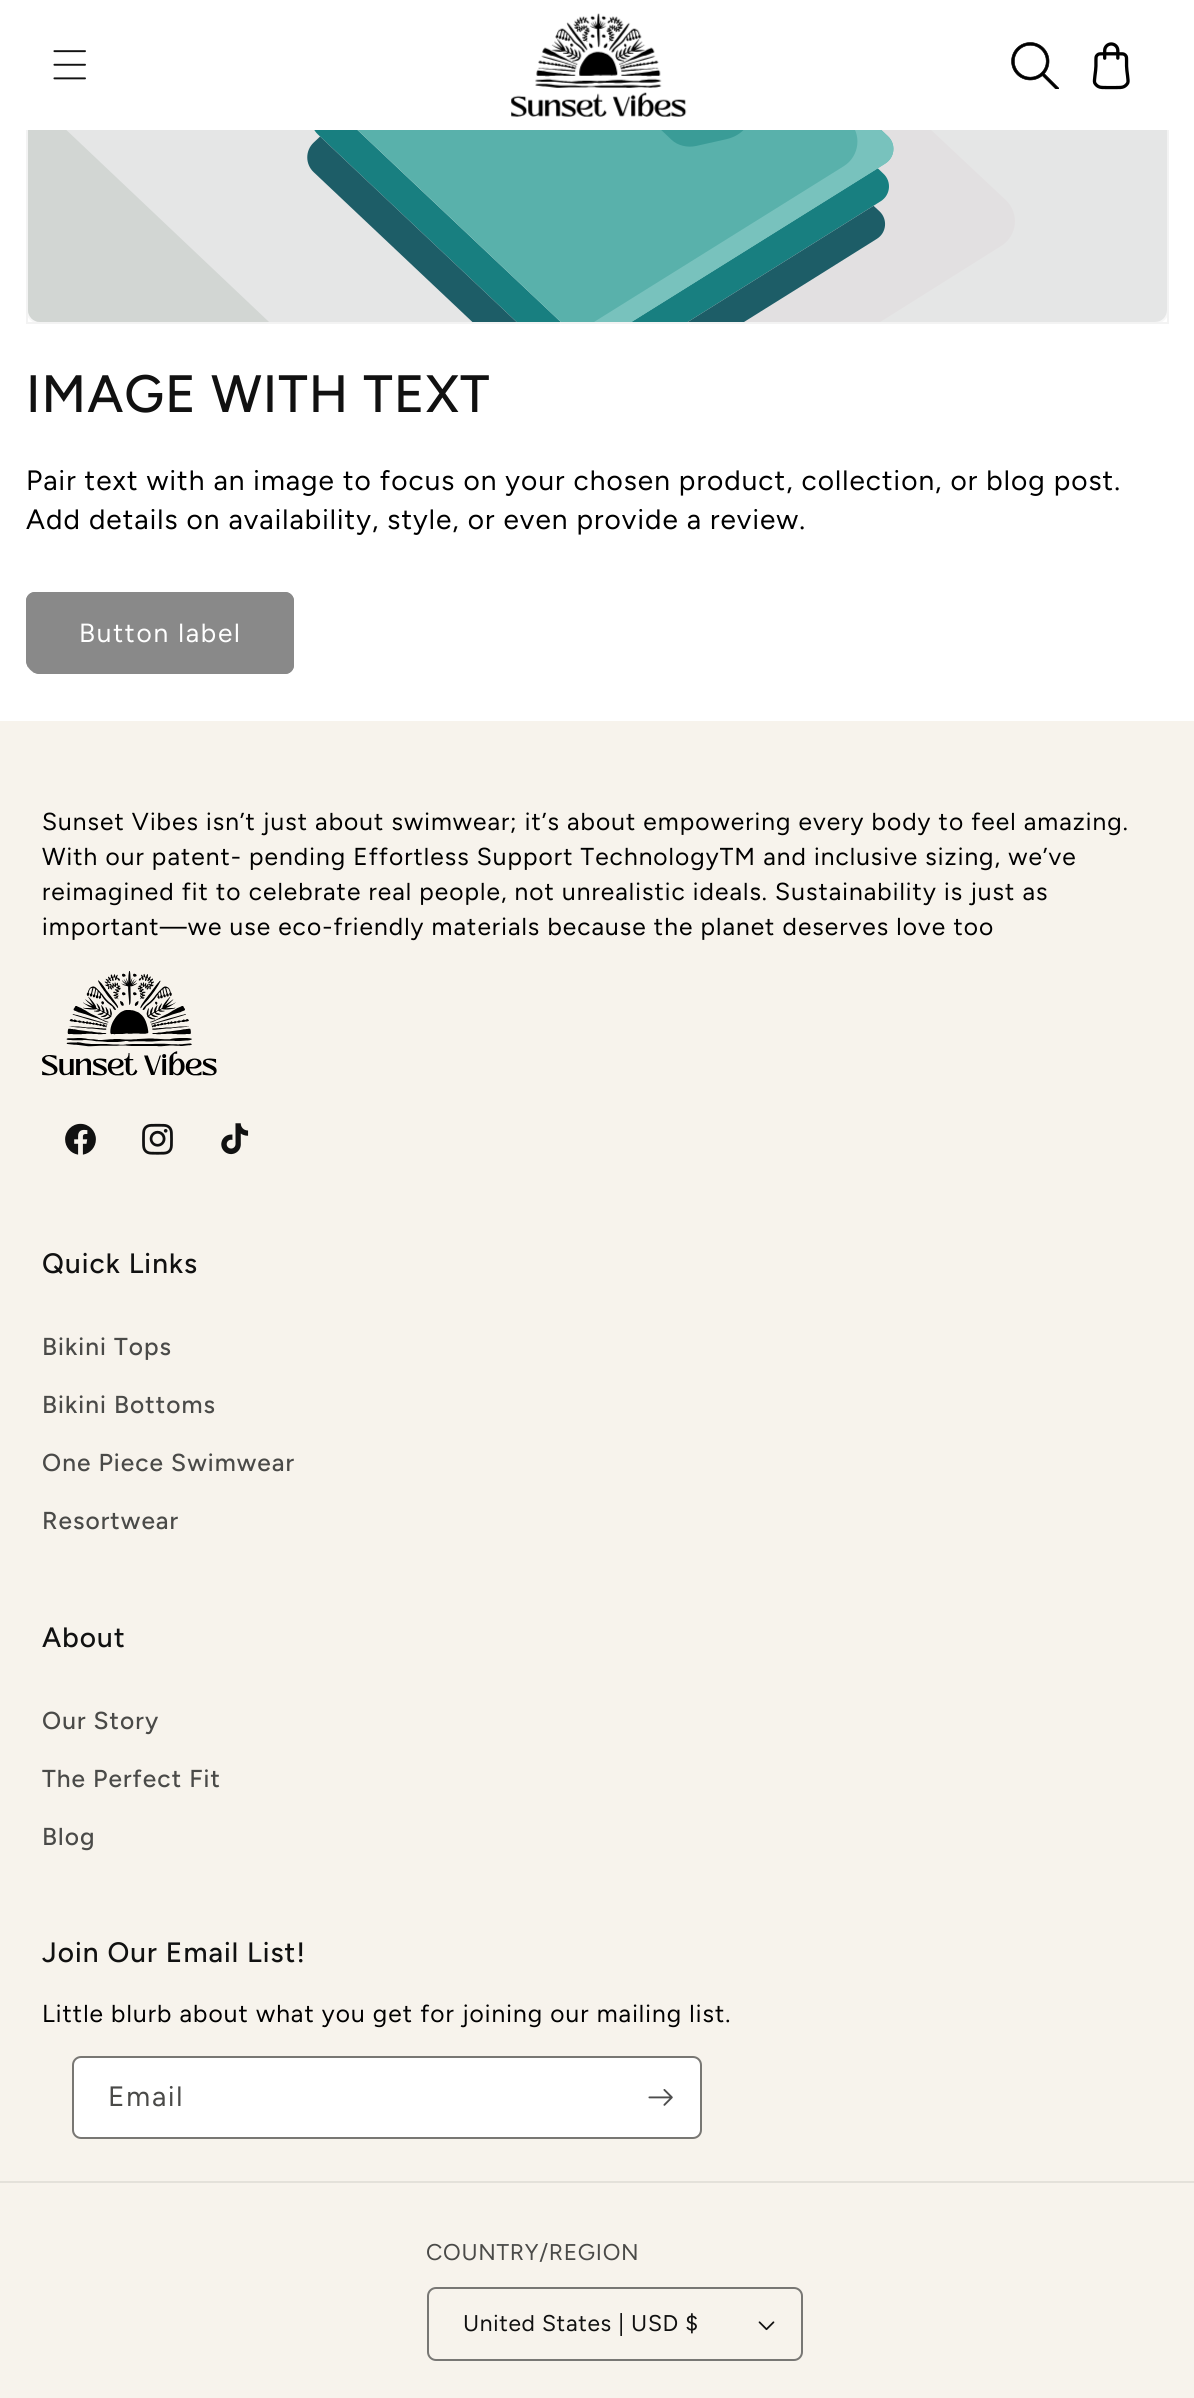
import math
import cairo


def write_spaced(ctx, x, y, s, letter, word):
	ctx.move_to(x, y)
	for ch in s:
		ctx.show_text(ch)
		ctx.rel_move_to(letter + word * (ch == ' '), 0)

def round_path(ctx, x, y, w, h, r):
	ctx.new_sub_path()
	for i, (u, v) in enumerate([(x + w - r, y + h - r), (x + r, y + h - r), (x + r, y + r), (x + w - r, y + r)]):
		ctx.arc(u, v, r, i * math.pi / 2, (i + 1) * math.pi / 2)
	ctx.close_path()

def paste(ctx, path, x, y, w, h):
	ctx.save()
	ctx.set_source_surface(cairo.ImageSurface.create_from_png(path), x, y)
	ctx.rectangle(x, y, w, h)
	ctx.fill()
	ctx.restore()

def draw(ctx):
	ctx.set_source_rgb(1, 1, 1)
	ctx.paint()
	ctx.set_source_rgb(0.965, 0.965, 0.965)
	round_path(ctx, 26, -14, 1143, 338, 14)
	ctx.fill()
	ctx.rectangle(27, -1, 1141, 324)
	ctx.set_source_rgb(0.953, 0.953, 0.953)
	ctx.stroke()
	ctx.set_source_rgb(1, 1, 1)
	ctx.rectangle(26, 0, 1143, 130)
	ctx.fill()
	paste(ctx, 'media/1.png', 53, 50, 33, 30)
	paste(ctx, 'media/2.png', 511, 13, 176, 104)
	paste(ctx, 'media/3.png', 1011, 42, 48, 47)
	paste(ctx, 'media/4.png', 1092, 42, 38, 48)
	paste(ctx, 'media/5.png', 28, 130, 1139, 192)
	ctx.select_font_face('Figtree Medium')
	ctx.set_font_size(52.5)
	ctx.set_source_rgb(0.067, 0.067, 0.067)
	write_spaced(ctx, 26, 412, 'IMAGE WITH TEXT', 1.05, 0)
	ctx.select_font_face('Figtree')
	ctx.set_font_size(28)
	ctx.set_source_rgb(0, 0, 0)
	write_spaced(ctx, 26, 490, 'Pair text with an image to focus on your chosen product, collection, or blog post.', 1.05, 0)
	write_spaced(ctx, 26, 529, 'Add details on availability, style, or even provide a review.', 1.05, 0)
	ctx.set_source_rgb(0.537, 0.537, 0.537)
	ctx.new_path()
	ctx.move_to(35, 592)
	ctx.line_to(285, 592)
	ctx.curve_to(290, 592, 294, 596, 294, 601)
	ctx.line_to(294, 665)
	ctx.curve_to(294, 670, 290, 674, 285, 674)
	ctx.line_to(40, 674)
	ctx.curve_to(32.5, 674, 26, 667.5, 26, 660)
	ctx.line_to(26, 601)
	ctx.curve_to(26, 596, 30, 592, 35, 592)
	ctx.close_path()
	ctx.fill()
	ctx.set_font_size(26.25)
	ctx.set_source_rgb(1, 1, 1)
	write_spaced(ctx, 79, 642, 'Button label', 1.75, 0)
	ctx.set_source_rgb(0.537, 0.537, 0.537)
	ctx.new_path()
	ctx.move_to(35, 592)
	ctx.curve_to(30, 592, 26, 596, 26, 601)
	ctx.line_to(26, 660)
	ctx.curve_to(26, 663, 27, 666, 29, 669)
	ctx.curve_to(28, 668, 28, 666, 28, 665)
	ctx.line_to(28, 601)
	ctx.curve_to(28, 597, 31, 594, 35, 594)
	ctx.line_to(285, 594)
	ctx.curve_to(289, 594, 292, 597, 292, 601)
	ctx.line_to(292, 665)
	ctx.curve_to(292, 669, 289, 672, 285, 672)
	ctx.line_to(35, 672)
	ctx.curve_to(34, 672, 32, 672, 31, 671)
	ctx.curve_to(34, 673, 37, 674, 40, 674)
	ctx.line_to(285, 674)
	ctx.curve_to(290, 674, 294, 670, 294, 665)
	ctx.line_to(294, 601)
	ctx.curve_to(294, 596, 290, 592, 285, 592)
	ctx.close_path()
	ctx.fill()
	ctx.set_source_rgb(0.965, 0.953, 0.925)
	ctx.rectangle(0, 721, 1194, 1677)
	ctx.fill()
	ctx.set_font_size(24.5)
	ctx.set_source_rgb(0, 0, 0)
	for x, y, s in [
		(42, 830, 'Sunset Vibes isn’t just about swimwear; it’s about empowering every body to feel amazing.'),
		(42, 865, 'With our patent- pending Effortless Support TechnologyTM and inclusive sizing, we’ve'),
		(42, 900, 'reimagined fit to celebrate real people, not unrealistic ideals. Sustainability is just as'),
		(42, 935, 'important—we use eco-friendly materials because the planet deserves love too'),
	]:
		write_spaced(ctx, x, y, s, 1.05, 0)
	paste(ctx, 'media/6.png', 42, 971, 175, 105)
	paste(ctx, 'media/7.png', 65, 1123, 31, 32)
	paste(ctx, 'media/8.png', 142, 1123, 31, 32)
	paste(ctx, 'media/9.png', 221, 1123, 28, 32)
	ctx.select_font_face('Figtree Medium')
	ctx.set_font_size(28)
	ctx.set_source_rgb(0.067, 0.067, 0.067)
	write_spaced(ctx, 42, 1273, 'Quick Links', 1.05, 0)
	ctx.set_font_size(24.5)
	ctx.set_source_rgb(0.29, 0.29, 0.282)
	for x, y, s in [
		(42, 1355, 'Bikini Tops'),
		(42, 1413, 'Bikini Bottoms'),
		(42, 1471, 'One Piece Swimwear'),
		(42, 1529, 'Resortwear'),
	]:
		write_spaced(ctx, x, y, s, 1.05, 0)
	ctx.set_font_size(28)
	ctx.set_source_rgb(0.067, 0.067, 0.067)
	write_spaced(ctx, 42, 1647, 'About', 1.05, 0)
	ctx.set_font_size(24.5)
	ctx.set_source_rgb(0.29, 0.29, 0.282)
	for x, y, s in [
		(42, 1729, 'Our Story'),
		(42, 1787, 'The Perfect Fit'),
		(42, 1845, 'Blog'),
	]:
		write_spaced(ctx, x, y, s, 1.05, 0)
	ctx.set_font_size(28)
	ctx.set_source_rgb(0.067, 0.067, 0.067)
	write_spaced(ctx, 42, 1962, 'Join Our Email List!', 1.05, 0)
	ctx.select_font_face('Figtree')
	ctx.set_font_size(24.5)
	ctx.set_source_rgb(0, 0, 0)
	write_spaced(ctx, 42, 2022, 'Little blurb about what you get for joining our mailing list.', 1.05, 0)
	ctx.set_source_rgb(1, 1, 1)
	round_path(ctx, 74, 2058, 626, 79, 7)
	ctx.fill()
	round_path(ctx, 73, 2057, 628, 81, 8)
	ctx.set_source_rgba(0.067, 0.067, 0.067, 0.55)
	ctx.stroke()
	ctx.set_font_size(28)
	ctx.set_source_rgb(0.29, 0.29, 0.282)
	write_spaced(ctx, 108, 2106, 'Email', 1.75, 0)
	paste(ctx, 'media/10.png', 648, 2089, 25, 17)
	ctx.set_source_rgb(0.894, 0.882, 0.855)
	ctx.rectangle(0, 2181, 1194, 2)
	ctx.fill()
	ctx.set_font_size(22.75)
	ctx.set_source_rgb(0.29, 0.29, 0.282)
	write_spaced(ctx, 426, 2260, 'COUNTRY/REGION', 0.7, 0)
	paste(ctx, 'media/11.png', 758, 2321, 17, 10)
	round_path(ctx, 428, 2288, 374, 72, 8)
	ctx.set_source_rgb(0.471, 0.467, 0.455)
	ctx.stroke()
	ctx.set_source_rgb(0.067, 0.067, 0.067)
	write_spaced(ctx, 463, 2331, 'United States | USD $', 0.7, 0)


surface = cairo.ImageSurface(cairo.FORMAT_RGB24, 1194, 2398)
ctx = cairo.Context(surface)
options = cairo.FontOptions()
options.set_hint_metrics(cairo.HINT_METRICS_OFF)
options.set_hint_style(cairo.HINT_STYLE_NONE)
ctx.set_font_options(options)
ctx.set_miter_limit(4)
draw(ctx)
surface.write_to_png('image.png')
